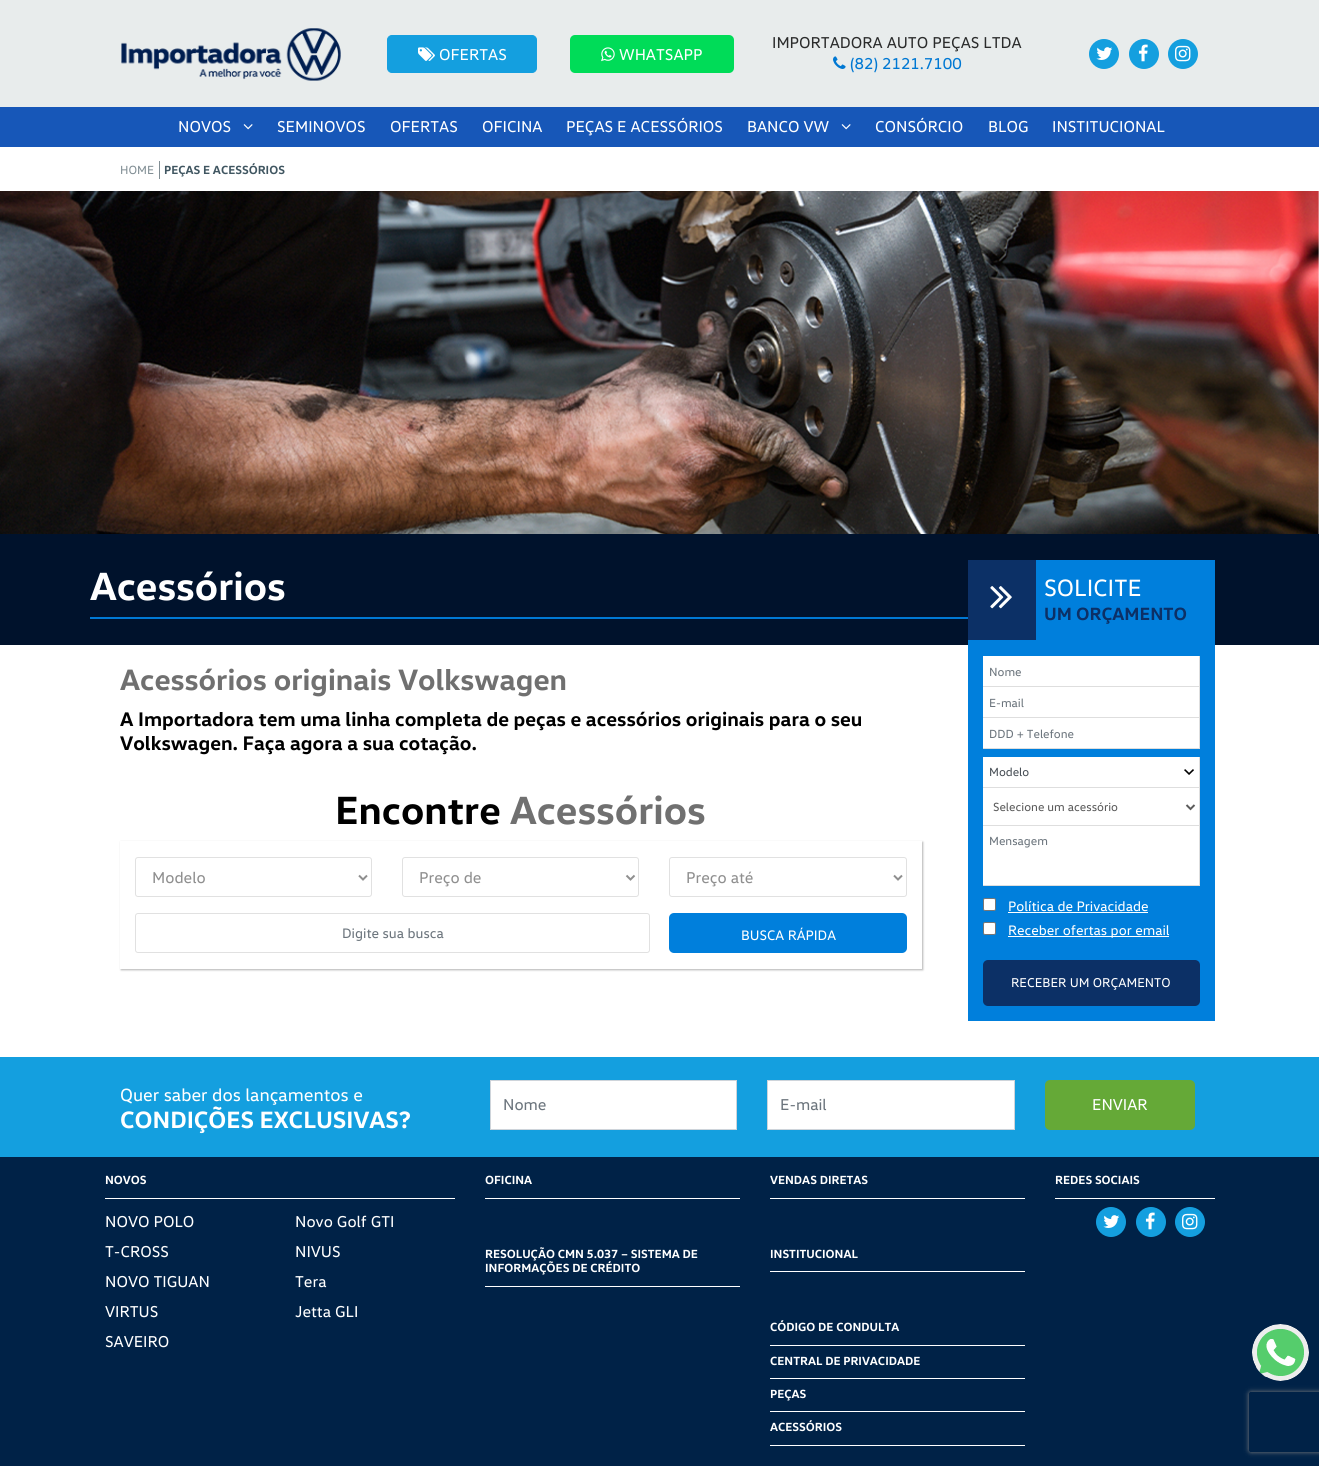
import math
import cairo


def round_path(ctx, x, y, w, h, r):
	ctx.new_sub_path()
	for i, (u, v) in enumerate([(x + w - r, y + h - r), (x + r, y + h - r), (x + r, y + r), (x + w - r, y + r)]):
		ctx.arc(u, v, r, i * math.pi / 2, (i + 1) * math.pi / 2)
	ctx.close_path()

def blur_box(ctx, x, y, w, h, r, blur, alpha):
	ctx.push_group_with_content(cairo.CONTENT_ALPHA)
	ctx.set_operator(cairo.OPERATOR_SOURCE)
	for i in range(15, -16, -2):
		e = blur * i / 6
		if min(w, h) + 2 * e > 0:
			ctx.set_source_rgba(0, 0, 0, alpha * math.erfc((i - 1) / 8.5) / 2)
			round_path(ctx, x - e, y - e, w + 2 * e, h + 2 * e, max(0, min(r + e + blur * .6, min(w, h) / 2 + e)))
			ctx.fill()
	ctx.mask(ctx.pop_group())

def paste(ctx, path, x, y, w, h):
	ctx.save()
	ctx.set_source_surface(cairo.ImageSurface.create_from_png(path), x, y)
	ctx.rectangle(x, y, w, h)
	ctx.fill()
	ctx.restore()

def draw(ctx):
	ctx.set_source_rgb(1, 1, 1)
	ctx.paint()
	ctx.set_source_rgb(0.91, 0.922, 0.925)
	ctx.rectangle(0, 0, 1319, 107)
	ctx.fill()
	paste(ctx, 'media/1.png', 121, 28, 220, 53)
	ctx.set_source_rgb(0.082, 0.624, 0.875)
	round_path(ctx, 387.5, 35.5, 149, 37, 4.5)
	ctx.fill_preserve()
	ctx.set_line_width(1)
	ctx.stroke()
	paste(ctx, 'media/2.png', 418, 47, 17, 14)
	ctx.select_font_face('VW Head')
	ctx.set_font_size(16)
	ctx.set_source_rgb(1, 1, 1)
	ctx.move_to(439, 60)
	ctx.show_text('OFERTAS')
	ctx.set_source_rgb(0, 0.863, 0.345)
	round_path(ctx, 570, 35, 164, 38, 5)
	ctx.fill()
	paste(ctx, 'media/3.png', 601, 47, 14, 15)
	ctx.set_source_rgb(1, 1, 1)
	ctx.move_to(619, 60)
	ctx.show_text('WHATSAPP')
	ctx.set_source_rgb(0.169, 0.173, 0.173)
	ctx.move_to(772, 48)
	ctx.show_text('IMPORTADORA AUTO PEÇAS LTDA')
	paste(ctx, 'media/4.png', 833, 56, 13, 13)
	ctx.set_source_rgb(0, 0.471, 0.827)
	ctx.move_to(850, 69)
	ctx.show_text('(82) 2121.7100')
	ctx.set_source_rgb(0.082, 0.624, 0.875)
	ctx.new_path()
	ctx.arc(1104, 54, 15, 0, 2 * math.pi)
	ctx.fill()
	paste(ctx, 'media/5.png', 1096, 47, 17, 13)
	ctx.arc(1144, 54, 15, 0, 2 * math.pi)
	ctx.fill()
	paste(ctx, 'media/6.png', 1138, 44, 10, 18)
	ctx.arc(1183, 54, 15, 0, 2 * math.pi)
	ctx.fill()
	paste(ctx, 'media/7.png', 1175, 45, 16, 17)
	ctx.set_source_rgb(0.09, 0.341, 0.722)
	ctx.rectangle(0, 107, 1319, 40)
	ctx.fill()
	ctx.set_source_rgb(1, 1, 1)
	ctx.move_to(178, 132)
	ctx.show_text('NOVOS')
	paste(ctx, 'media/8.png', 243, 124, 10, 6)
	for x, y, s in [
		(277, 132, 'SEMINOVOS'),
		(390, 132, 'OFERTAS'),
		(482, 132, 'OFICINA'),
		(566, 132, 'PEÇAS E ACESSÓRIOS'),
		(747, 132, 'BANCO VW'),
	]:
		ctx.move_to(x, y)
		ctx.show_text(s)
	paste(ctx, 'media/8.png', 841, 124, 10, 6)
	for x, y, s in [
		(875, 132, 'CONSÓRCIO'),
		(988, 132, 'BLOG'),
		(1052, 132, 'INSTITUCIONAL'),
	]:
		ctx.move_to(x, y)
		ctx.show_text(s)
	ctx.set_source_rgb(0, 0.133, 0.278)
	ctx.rectangle(0, 1157, 1319, 309)
	ctx.fill()
	paste(ctx, 'media/9.png', 1252, 1324, 57, 57)
	ctx.set_source_rgb(0.506, 0.557, 0.58)
	ctx.rectangle(159, 161, 1, 18)
	ctx.fill()
	ctx.set_font_size(12)
	ctx.move_to(120, 174)
	ctx.show_text('HOME')
	ctx.select_font_face('VW Head', cairo.FONT_SLANT_NORMAL, cairo.FONT_WEIGHT_BOLD)
	ctx.set_source_rgb(0.251, 0.337, 0.38)
	ctx.move_to(164, 174)
	ctx.show_text('PEÇAS E ACESSÓRIOS')
	paste(ctx, 'media/10.png', 0, 191, 1319, 343)
	ctx.set_source_rgb(0, 0.071, 0.173)
	ctx.rectangle(0, 534, 1319, 111)
	ctx.fill()
	ctx.set_source_rgb(0, 0.471, 0.827)
	ctx.rectangle(90, 617, 878, 2)
	ctx.fill()
	ctx.set_font_size(40)
	ctx.set_source_rgb(1, 1, 1)
	ctx.move_to(90, 600)
	ctx.show_text('Acessórios')
	ctx.set_source_rgb(0, 0.498, 0.863)
	ctx.rectangle(968, 560, 247, 461)
	ctx.fill()
	ctx.set_source_rgb(0.047, 0.188, 0.4)
	ctx.rectangle(968, 560, 68, 80)
	ctx.fill()
	paste(ctx, 'media/11.png', 990, 586, 22, 23)
	ctx.select_font_face('VW Head')
	ctx.set_font_size(24)
	ctx.set_source_rgb(1, 1, 1)
	ctx.move_to(1044, 596)
	ctx.show_text('SOLICITE')
	ctx.select_font_face('VW Head', cairo.FONT_SLANT_NORMAL, cairo.FONT_WEIGHT_BOLD)
	ctx.set_font_size(18)
	ctx.set_source_rgb(0.047, 0.188, 0.4)
	ctx.move_to(1044, 620)
	ctx.show_text('UM ORÇAMENTO')
	ctx.set_source_rgb(1, 1, 1)
	ctx.rectangle(983, 656, 216, 30)
	ctx.fill()
	ctx.set_source_rgb(0.871, 0.871, 0.871)
	ctx.rectangle(1199, 656, 1, 93)
	ctx.rectangle(983, 686, 217, 1)
	ctx.fill()
	ctx.select_font_face('VW Head')
	ctx.set_font_size(12)
	ctx.set_source_rgb(0.424, 0.459, 0.49)
	ctx.move_to(989, 676)
	ctx.show_text('Nome')
	ctx.set_source_rgb(1, 1, 1)
	ctx.rectangle(983, 687, 216, 30)
	ctx.fill()
	ctx.set_source_rgb(0.871, 0.871, 0.871)
	ctx.rectangle(983, 717, 217, 1)
	ctx.fill()
	ctx.set_source_rgb(0.424, 0.459, 0.49)
	ctx.move_to(989, 707)
	ctx.show_text('E-mail')
	ctx.set_source_rgb(1, 1, 1)
	ctx.rectangle(983, 718, 216, 30)
	ctx.fill()
	ctx.set_source_rgb(0.871, 0.871, 0.871)
	ctx.rectangle(983, 748, 217, 1)
	ctx.fill()
	ctx.set_source_rgb(0.424, 0.459, 0.49)
	ctx.move_to(989, 738)
	ctx.show_text('DDD + Telefone')
	ctx.set_source_rgb(1, 1, 1)
	ctx.rectangle(983, 757, 216, 30)
	ctx.fill()
	paste(ctx, 'media/12.png', 1184, 769, 10, 6)
	ctx.set_source_rgb(0.871, 0.871, 0.871)
	ctx.rectangle(1199, 757, 1, 129)
	ctx.fill()
	ctx.rectangle(983, 787, 217, 1)
	ctx.fill()
	ctx.set_source_rgb(0.286, 0.314, 0.341)
	ctx.move_to(989, 776)
	ctx.show_text('Modelo')
	ctx.set_source_rgb(1, 1, 1)
	ctx.rectangle(983, 788, 216, 37)
	ctx.fill()
	ctx.set_source_rgb(0.871, 0.871, 0.871)
	ctx.rectangle(983, 825, 217, 1)
	ctx.fill()
	ctx.new_path()
	ctx.move_to(1186.5, 805)
	ctx.line_to(1190.5, 809)
	ctx.line_to(1194.5, 805)
	ctx.set_source_rgb(0.357, 0.357, 0.357)
	ctx.set_line_width(2)
	ctx.stroke()
	ctx.move_to(993, 811)
	ctx.show_text('Selecione um acessório')
	ctx.set_source_rgb(1, 1, 1)
	ctx.rectangle(983, 826, 216, 59)
	ctx.fill()
	ctx.set_source_rgb(0.871, 0.871, 0.871)
	ctx.rectangle(983, 885, 217, 1)
	ctx.fill()
	ctx.set_source_rgb(0.424, 0.459, 0.49)
	ctx.move_to(989, 845)
	ctx.show_text('Mensagem')
	ctx.set_source_rgb(1, 1, 1)
	round_path(ctx, 983.5, 898.5, 12, 12, 1.5)
	ctx.fill_preserve()
	ctx.set_source_rgb(0.463, 0.463, 0.463)
	ctx.set_line_width(1)
	ctx.stroke()
	ctx.set_font_size(14)
	ctx.set_source_rgb(1, 1, 1)
	ctx.move_to(1008, 911)
	ctx.show_text('Política de Privacidade')
	ctx.rectangle(1008, 912, 140, 1)
	ctx.fill()
	round_path(ctx, 983.5, 922.5, 12, 12, 1.5)
	ctx.fill_preserve()
	ctx.set_source_rgb(0.463, 0.463, 0.463)
	ctx.stroke()
	ctx.set_source_rgb(1, 1, 1)
	ctx.rectangle(1008, 936, 161, 1)
	ctx.fill()
	ctx.move_to(1008, 935)
	ctx.show_text('Receber ofertas por email')
	ctx.set_source_rgb(0.047, 0.188, 0.4)
	round_path(ctx, 983, 960, 217, 46, 5)
	ctx.fill()
	ctx.set_font_size(13)
	ctx.set_source_rgb(1, 1, 1)
	ctx.move_to(1011, 987)
	ctx.show_text('RECEBER UM ORÇAMENTO')
	ctx.select_font_face('VW Head', cairo.FONT_SLANT_NORMAL, cairo.FONT_WEIGHT_BOLD)
	ctx.set_font_size(30)
	ctx.set_source_rgb(0.439, 0.439, 0.439)
	ctx.move_to(120, 690)
	ctx.show_text('Acessórios originais Volkswagen')
	ctx.set_font_size(20)
	ctx.set_source_rgb(0, 0, 0)
	ctx.move_to(120, 726)
	ctx.show_text('A Importadora tem uma linha completa de peças e acessórios originais para o seu')
	ctx.move_to(120, 750)
	ctx.show_text('Volkswagen. Faça agora a sua cotação.')
	ctx.set_font_size(40)
	ctx.move_to(335, 824)
	ctx.show_text('Encontre')
	ctx.set_source_rgb(0.439, 0.439, 0.439)
	ctx.move_to(510, 824)
	ctx.show_text('Acessórios')
	ctx.save()
	ctx.set_fill_rule(cairo.FILL_RULE_EVEN_ODD)
	ctx.new_path()
	ctx.move_to(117, 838)
	ctx.line_to(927, 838)
	ctx.line_to(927, 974)
	ctx.line_to(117, 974)
	ctx.close_path()
	ctx.move_to(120, 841)
	ctx.line_to(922, 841)
	ctx.line_to(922, 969)
	ctx.line_to(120, 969)
	ctx.close_path()
	ctx.clip()
	ctx.set_source_rgb(0, 0, 0)
	blur_box(ctx, 121, 842, 802, 128, 0, 1, 0.3)
	ctx.restore()
	round_path(ctx, 135.5, 857.5, 236, 39, 2.5)
	ctx.set_source_rgb(0.882, 0.882, 0.882)
	ctx.stroke()
	ctx.new_path()
	ctx.move_to(359, 875.5)
	ctx.line_to(363, 879.5)
	ctx.line_to(367, 875.5)
	ctx.set_source_rgb(0.561, 0.561, 0.561)
	ctx.set_line_width(2)
	ctx.stroke()
	ctx.select_font_face('VW Head')
	ctx.set_font_size(16)
	ctx.move_to(152, 883)
	ctx.show_text('Modelo')
	round_path(ctx, 402.5, 857.5, 236, 39, 2.5)
	ctx.set_source_rgb(0.882, 0.882, 0.882)
	ctx.set_line_width(1)
	ctx.stroke()
	ctx.new_path()
	ctx.move_to(626.5, 875.5)
	ctx.line_to(630.5, 879.5)
	ctx.line_to(634.5, 875.5)
	ctx.set_source_rgb(0.561, 0.561, 0.561)
	ctx.set_line_width(2)
	ctx.stroke()
	ctx.move_to(419, 883)
	ctx.show_text('Preço de')
	round_path(ctx, 669.5, 857.5, 237, 39, 2.5)
	ctx.set_source_rgb(0.882, 0.882, 0.882)
	ctx.set_line_width(1)
	ctx.stroke()
	ctx.new_path()
	ctx.move_to(894, 875.5)
	ctx.line_to(898, 879.5)
	ctx.line_to(902, 875.5)
	ctx.set_source_rgb(0.561, 0.561, 0.561)
	ctx.set_line_width(2)
	ctx.stroke()
	ctx.move_to(686, 883)
	ctx.show_text('Preço até')
	round_path(ctx, 135.5, 913.5, 514, 39, 2.5)
	ctx.set_source_rgb(0.882, 0.882, 0.882)
	ctx.set_line_width(1)
	ctx.stroke()
	ctx.set_font_size(14)
	ctx.set_source_rgb(0.424, 0.459, 0.49)
	ctx.move_to(342, 938)
	ctx.show_text('Digite sua busca')
	ctx.set_source_rgb(0, 0.498, 0.863)
	round_path(ctx, 669, 913, 238, 40, 5)
	ctx.fill()
	ctx.set_source_rgb(1, 1, 1)
	ctx.move_to(741, 940)
	ctx.show_text('BUSCA RÁPIDA')
	ctx.set_source_rgb(0.082, 0.624, 0.875)
	ctx.rectangle(0, 1057, 1319, 100)
	ctx.fill()
	ctx.set_font_size(18)
	ctx.set_source_rgb(1, 1, 1)
	ctx.move_to(120, 1101)
	ctx.show_text('Quer saber dos lançamentos e')
	ctx.select_font_face('VW Head', cairo.FONT_SLANT_NORMAL, cairo.FONT_WEIGHT_BOLD)
	ctx.set_font_size(24)
	ctx.move_to(120, 1128)
	ctx.show_text('CONDIÇÕES EXCLUSIVAS?')
	ctx.rectangle(490.5, 1080.5, 246, 49)
	ctx.fill_preserve()
	ctx.set_source_rgb(0.808, 0.831, 0.855)
	ctx.stroke()
	ctx.select_font_face('VW Head')
	ctx.set_font_size(16)
	ctx.set_source_rgb(0.424, 0.459, 0.49)
	ctx.move_to(503, 1110)
	ctx.show_text('Nome')
	ctx.set_source_rgb(1, 1, 1)
	ctx.rectangle(767.5, 1080.5, 247, 49)
	ctx.fill_preserve()
	ctx.set_source_rgb(0.808, 0.831, 0.855)
	ctx.stroke()
	ctx.set_source_rgb(0.424, 0.459, 0.49)
	ctx.move_to(780, 1110)
	ctx.show_text('E-mail')
	ctx.set_source_rgb(0.396, 0.663, 0.216)
	round_path(ctx, 1045, 1080, 150, 50, 5)
	ctx.fill()
	ctx.set_source_rgb(1, 1, 1)
	ctx.move_to(1092, 1110)
	ctx.show_text('ENVIAR')
	ctx.rectangle(105, 1198, 350, 1)
	ctx.fill()
	ctx.select_font_face('VW Head', cairo.FONT_SLANT_NORMAL, cairo.FONT_WEIGHT_BOLD)
	ctx.set_font_size(12)
	ctx.move_to(105, 1184)
	ctx.show_text('NOVOS')
	ctx.select_font_face('VW Head')
	ctx.set_font_size(16)
	for x, y, s in [
		(105, 1227, 'NOVO POLO'),
		(295, 1227, 'Novo Golf GTI'),
		(105, 1257, 'T-CROSS'),
		(295, 1257, 'NIVUS'),
		(105, 1287, 'NOVO TIGUAN'),
		(295, 1287, 'Tera'),
		(105, 1317, 'VIRTUS'),
		(295, 1317, 'Jetta GLI'),
		(105, 1347, 'SAVEIRO'),
	]:
		ctx.move_to(x, y)
		ctx.show_text(s)
	ctx.rectangle(485, 1198, 255, 1)
	ctx.fill()
	ctx.select_font_face('VW Head', cairo.FONT_SLANT_NORMAL, cairo.FONT_WEIGHT_BOLD)
	ctx.set_font_size(12)
	ctx.move_to(485, 1184)
	ctx.show_text('OFICINA')
	ctx.rectangle(485, 1286, 255, 1)
	ctx.fill()
	ctx.move_to(485, 1258)
	ctx.show_text('RESOLUÇÃO CMN 5.037 – SISTEMA DE')
	ctx.move_to(485, 1272)
	ctx.show_text('INFORMAÇÕES DE CRÉDITO')
	ctx.rectangle(770, 1198, 255, 1)
	ctx.fill()
	ctx.move_to(770, 1184)
	ctx.show_text('VENDAS DIRETAS')
	ctx.rectangle(770, 1271, 255, 1)
	ctx.fill()
	ctx.move_to(770, 1258)
	ctx.show_text('INSTITUCIONAL')
	ctx.rectangle(770, 1345, 255, 1)
	ctx.fill()
	ctx.move_to(770, 1331)
	ctx.show_text('CÓDIGO DE CONDULTA')
	ctx.rectangle(770, 1378, 255, 1)
	ctx.fill()
	ctx.move_to(770, 1365)
	ctx.show_text('CENTRAL DE PRIVACIDADE')
	ctx.rectangle(770, 1411, 255, 1)
	ctx.fill()
	ctx.move_to(770, 1398)
	ctx.show_text('PEÇAS')
	ctx.rectangle(770, 1445, 255, 1)
	ctx.fill()
	ctx.move_to(770, 1431)
	ctx.show_text('ACESSÓRIOS')
	ctx.rectangle(1055, 1198, 160, 1)
	ctx.fill()
	ctx.move_to(1055, 1184)
	ctx.show_text('REDES SOCIAIS')
	ctx.set_source_rgb(0.082, 0.624, 0.875)
	ctx.new_path()
	ctx.arc(1111, 1222, 15, 0, 2 * math.pi)
	ctx.fill()
	paste(ctx, 'media/5.png', 1103, 1215, 17, 13)
	ctx.arc(1151, 1222, 15, 0, 2 * math.pi)
	ctx.fill()
	paste(ctx, 'media/6.png', 1145, 1212, 10, 18)
	ctx.arc(1190, 1222, 15, 0, 2 * math.pi)
	ctx.fill()
	paste(ctx, 'media/7.png', 1182, 1213, 16, 17)
	ctx.save()
	ctx.set_fill_rule(cairo.FILL_RULE_EVEN_ODD)
	ctx.new_path()
	ctx.move_to(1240, 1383)
	ctx.line_to(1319, 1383)
	ctx.line_to(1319, 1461)
	ctx.line_to(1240, 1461)
	ctx.close_path()
	ctx.move_to(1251, 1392)
	ctx.line_to(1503, 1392)
	ctx.curve_to(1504, 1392, 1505, 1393, 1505, 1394)
	ctx.line_to(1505, 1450)
	ctx.curve_to(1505, 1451, 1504, 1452, 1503, 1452)
	ctx.line_to(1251, 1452)
	ctx.curve_to(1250, 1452, 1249, 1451, 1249, 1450)
	ctx.line_to(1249, 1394)
	ctx.curve_to(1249, 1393, 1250, 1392, 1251, 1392)
	ctx.close_path()
	ctx.clip()
	ctx.set_source_rgb(0.502, 0.502, 0.502)
	blur_box(ctx, 1249, 1392, 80, 60, 2, 2.5, 1)
	ctx.restore()


surface = cairo.ImageSurface(cairo.FORMAT_RGB24, 1319, 1466)
ctx = cairo.Context(surface)
options = cairo.FontOptions()
options.set_hint_metrics(cairo.HINT_METRICS_OFF)
options.set_hint_style(cairo.HINT_STYLE_NONE)
ctx.set_font_options(options)
ctx.set_miter_limit(4)
draw(ctx)
surface.write_to_png('image.png')
